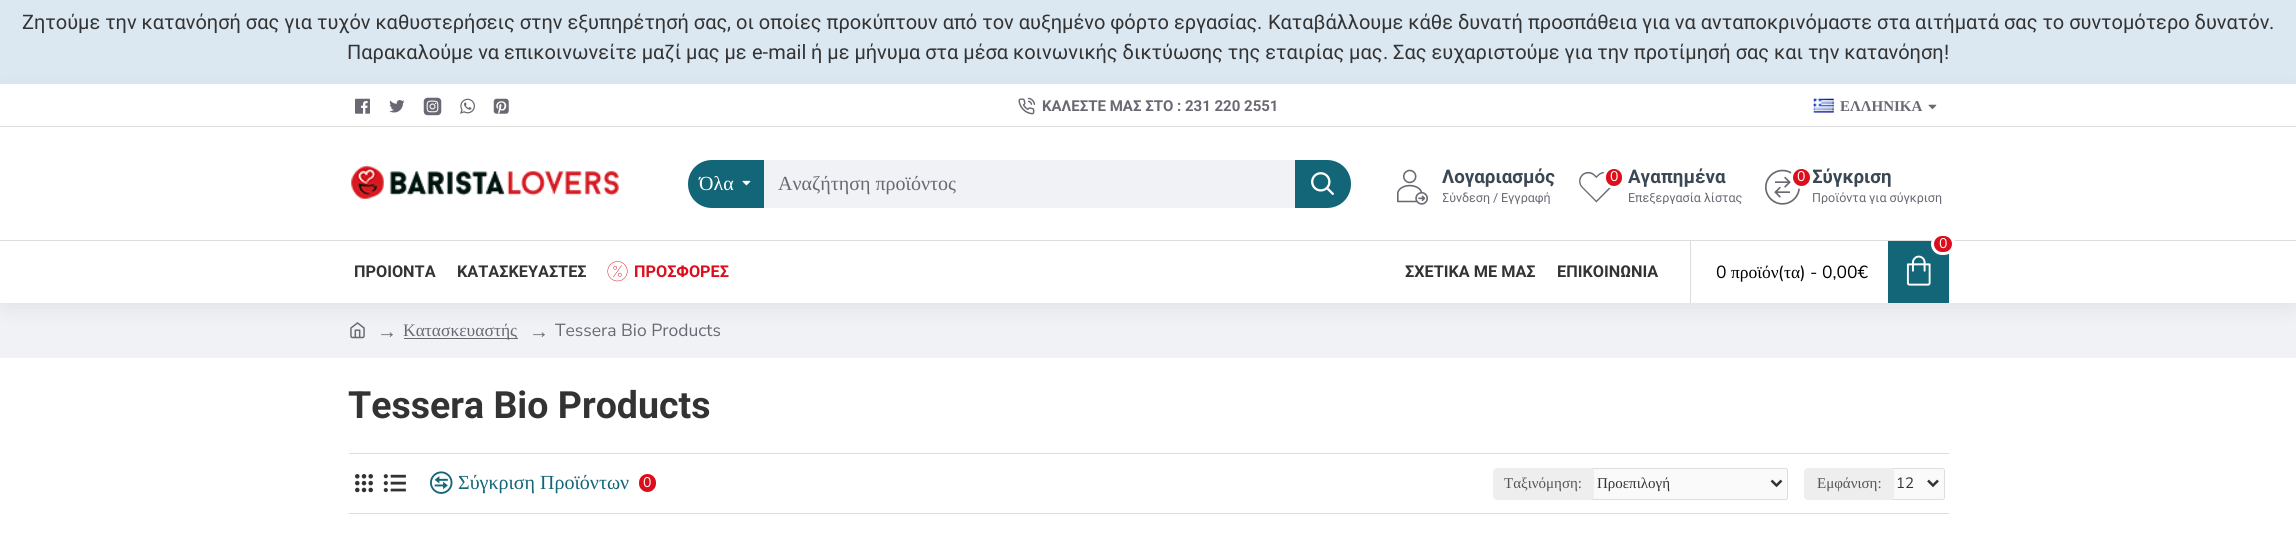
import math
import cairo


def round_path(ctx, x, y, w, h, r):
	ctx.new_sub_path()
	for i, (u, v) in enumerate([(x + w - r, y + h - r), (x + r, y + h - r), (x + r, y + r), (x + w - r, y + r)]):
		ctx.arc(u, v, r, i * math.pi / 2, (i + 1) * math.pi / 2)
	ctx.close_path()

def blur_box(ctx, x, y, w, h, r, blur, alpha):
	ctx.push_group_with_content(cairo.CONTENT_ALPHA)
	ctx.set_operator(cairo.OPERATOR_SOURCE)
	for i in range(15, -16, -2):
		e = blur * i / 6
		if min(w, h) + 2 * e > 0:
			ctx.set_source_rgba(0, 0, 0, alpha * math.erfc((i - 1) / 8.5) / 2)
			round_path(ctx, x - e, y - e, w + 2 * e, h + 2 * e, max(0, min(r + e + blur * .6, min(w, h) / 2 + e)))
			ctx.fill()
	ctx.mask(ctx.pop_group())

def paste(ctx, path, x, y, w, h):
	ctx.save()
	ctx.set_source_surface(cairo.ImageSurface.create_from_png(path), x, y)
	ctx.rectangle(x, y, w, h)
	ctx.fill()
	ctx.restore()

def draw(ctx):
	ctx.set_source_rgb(1, 1, 1)
	ctx.paint()
	ctx.set_source_rgb(0.859, 0.91, 0.949)
	ctx.rectangle(0, 0, 2296, 84)
	ctx.fill()
	ctx.select_font_face('Roboto')
	ctx.set_font_size(20)
	ctx.set_source_rgb(0.2, 0.2, 0.2)
	ctx.move_to(22, 29)
	ctx.show_text('Ζητούμε την κατανόησή σας για τυχόν καθυστερήσεις στην εξυπηρέτησή σας')
	ctx.select_font_face('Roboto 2')
	ctx.move_to(727, 29)
	ctx.show_text(',')
	ctx.select_font_face('Roboto')
	ctx.move_to(736, 29)
	ctx.show_text('οι οποίες προκύπτουν από τον αυξημένο φόρτο εργασίας')
	ctx.select_font_face('Roboto 2')
	ctx.move_to(1257, 29)
	ctx.show_text('.')
	ctx.select_font_face('Roboto')
	ctx.move_to(1268, 29)
	ctx.show_text('Καταβάλλουμε κάθε δυνατή προσπάθεια για να ανταποκρινόμαστε στα αιτήματά σας το συντομότερο δυνατόν')
	ctx.select_font_face('Roboto 2')
	ctx.move_to(2269, 29)
	ctx.show_text('.')
	ctx.select_font_face('Roboto')
	ctx.move_to(347, 59)
	ctx.show_text('Παρακαλούμε να επικοινωνείτε μαζί μας με')
	ctx.select_font_face('Roboto 2')
	ctx.move_to(752, 59)
	ctx.show_text('e-mail')
	ctx.select_font_face('Roboto')
	ctx.move_to(811, 59)
	ctx.show_text('ή με μήνυμα στα μέσα κοινωνικής δικτύωσης της εταιρίας μας')
	ctx.select_font_face('Roboto 2')
	ctx.move_to(1383, 59)
	ctx.show_text('.')
	ctx.select_font_face('Roboto')
	ctx.move_to(1393, 59)
	ctx.show_text('Σας ευχαριστούμε για την προτίμησή σας και την κατανόηση')
	ctx.select_font_face('Roboto 2')
	ctx.move_to(1944, 59)
	ctx.show_text('!')
	ctx.set_source_rgb(0.941, 0.949, 0.961)
	ctx.rectangle(0, 303, 2296, 55)
	ctx.fill()
	paste(ctx, 'media/17.png', 350, 322, 15, 17)
	ctx.set_source_rgb(0.412, 0.412, 0.451)
	ctx.rectangle(404, 338, 114, 1)
	ctx.fill()
	ctx.set_source_rgb(0, 0, 0)
	blur_box(ctx, 6, 96, 2284, 207, 0, 12.5, 0.1)
	ctx.set_source_rgb(1, 1, 1)
	ctx.rectangle(0, 84, 2296, 219)
	ctx.fill()
	paste(ctx, 'media/1.png', 355, 98, 15, 16)
	paste(ctx, 'media/2.png', 389, 100, 16, 13)
	paste(ctx, 'media/3.png', 423, 97, 19, 19)
	paste(ctx, 'media/4.png', 460, 98, 15, 16)
	paste(ctx, 'media/5.png', 493, 98, 16, 16)
	paste(ctx, 'media/6.png', 1018, 97, 18, 18)
	ctx.select_font_face('Roboto', cairo.FONT_SLANT_NORMAL, cairo.FONT_WEIGHT_BOLD)
	ctx.set_font_size(15)
	ctx.set_source_rgb(0.412, 0.412, 0.451)
	ctx.move_to(1042, 111)
	ctx.show_text('ΚΑΛΕΣΤΕ ΜΑΣ ΣΤΟ : 231 220 2551')
	paste(ctx, 'media/7.png', 1813, 98, 21, 15)
	ctx.select_font_face('Liberation Serif', cairo.FONT_SLANT_NORMAL, cairo.FONT_WEIGHT_BOLD)
	ctx.move_to(1840, 111)
	ctx.show_text('ΕΛΛΗΝΙΚΑ')
	paste(ctx, 'media/8.png', 1928, 104, 9, 6)
	paste(ctx, 'media/9.png', 351, 166, 268, 33)
	ctx.set_source_rgb(0.078, 0.4, 0.471)
	ctx.new_path()
	ctx.move_to(712, 160)
	ctx.line_to(764, 160)
	ctx.line_to(764, 208)
	ctx.line_to(712, 208)
	ctx.curve_to(698.5, 208, 688, 197.5, 688, 184)
	ctx.curve_to(688, 170.5, 698.5, 160, 712, 160)
	ctx.close_path()
	ctx.fill()
	ctx.select_font_face('Liberation Serif')
	ctx.set_font_size(20)
	ctx.set_source_rgb(1, 1, 1)
	ctx.move_to(699, 190)
	ctx.show_text('Όλα')
	paste(ctx, 'media/10.png', 742, 180, 9, 6)
	ctx.set_source_rgb(0.941, 0.949, 0.961)
	ctx.rectangle(764, 160, 531, 48)
	ctx.fill()
	ctx.set_source_rgb(0.412, 0.412, 0.451)
	ctx.move_to(778, 190)
	ctx.show_text('Αναζήτηση προϊόντος')
	ctx.set_source_rgb(0.078, 0.4, 0.471)
	ctx.new_path()
	ctx.move_to(1295, 160)
	ctx.line_to(1327, 160)
	ctx.curve_to(1340.5, 160, 1351, 170.5, 1351, 184)
	ctx.curve_to(1351, 197.5, 1340.5, 208, 1327, 208)
	ctx.line_to(1295, 208)
	ctx.close_path()
	ctx.fill()
	paste(ctx, 'media/11.png', 1311, 172, 23, 23)
	paste(ctx, 'media/12.png', 1397, 169, 31, 36)
	ctx.select_font_face('Roboto', cairo.FONT_SLANT_NORMAL, cairo.FONT_WEIGHT_BOLD)
	ctx.set_font_size(18.75)
	ctx.set_source_rgb(0.227, 0.278, 0.329)
	ctx.move_to(1442, 183)
	ctx.show_text('Λογαριασμός')
	ctx.save()
	ctx.rectangle(1443, 164, 112, 40)
	ctx.clip()
	ctx.select_font_face('Roboto')
	ctx.set_font_size(12.5)
	ctx.set_source_rgb(0.412, 0.412, 0.451)
	ctx.move_to(1442, 202)
	ctx.show_text('Σύνδεση')
	ctx.restore()
	ctx.select_font_face('Roboto 2')
	ctx.set_font_size(12.5)
	ctx.set_source_rgb(0.412, 0.412, 0.451)
	ctx.move_to(1493, 202)
	ctx.show_text('/')
	ctx.save()
	ctx.rectangle(1443, 164, 112, 40)
	ctx.clip()
	ctx.select_font_face('Roboto')
	ctx.move_to(1501, 202)
	ctx.show_text('Εγγραφή')
	ctx.restore()
	paste(ctx, 'media/13.png', 1579, 171, 32, 32)
	ctx.set_source_rgb(0.867, 0.055, 0.11)
	round_path(ctx, 1604.5, 167.5, 19, 20, 9.5)
	ctx.fill_preserve()
	ctx.set_source_rgb(1, 1, 1)
	ctx.set_line_width(3)
	ctx.stroke()
	ctx.select_font_face('Nunito Sans')
	ctx.set_font_size(14)
	ctx.move_to(1610, 181)
	ctx.show_text('0')
	ctx.select_font_face('Roboto', cairo.FONT_SLANT_NORMAL, cairo.FONT_WEIGHT_BOLD)
	ctx.set_font_size(18.75)
	ctx.set_source_rgb(0.227, 0.278, 0.329)
	ctx.move_to(1628, 183)
	ctx.show_text('Αγαπημένα')
	ctx.save()
	ctx.rectangle(1628, 164, 115, 40)
	ctx.clip()
	ctx.select_font_face('Roboto')
	ctx.set_font_size(12.5)
	ctx.set_source_rgb(0.412, 0.412, 0.451)
	ctx.move_to(1628, 202)
	ctx.show_text('Επεξεργασία λίστας')
	ctx.restore()
	paste(ctx, 'media/14.png', 1765, 169, 35, 36)
	ctx.set_source_rgb(0.867, 0.055, 0.11)
	ctx.arc(1801.5, 177.5, 10, 0, 2 * math.pi)
	ctx.fill_preserve()
	ctx.set_source_rgb(1, 1, 1)
	ctx.stroke()
	ctx.select_font_face('Nunito Sans')
	ctx.set_font_size(14)
	ctx.move_to(1797, 181)
	ctx.show_text('0')
	ctx.save()
	ctx.rectangle(1813, 164, 130, 40)
	ctx.clip()
	ctx.select_font_face('Roboto', cairo.FONT_SLANT_NORMAL, cairo.FONT_WEIGHT_BOLD)
	ctx.set_font_size(18.75)
	ctx.set_source_rgb(0.227, 0.278, 0.329)
	ctx.move_to(1812, 183)
	ctx.show_text('Σύγκριση')
	ctx.select_font_face('Roboto')
	ctx.set_font_size(12.5)
	ctx.set_source_rgb(0.412, 0.412, 0.451)
	ctx.move_to(1812, 202)
	ctx.show_text('Προϊόντα για σύγκριση')
	ctx.restore()
	ctx.set_source_rgb(0.867, 0.867, 0.867)
	ctx.rectangle(0, 240, 2296, 1)
	ctx.rectangle(1690, 240, 1, 63)
	ctx.fill()
	ctx.set_source_rgb(0.078, 0.4, 0.471)
	ctx.rectangle(1888, 241, 61, 62)
	ctx.fill()
	ctx.set_source_rgb(0.867, 0.055, 0.11)
	round_path(ctx, 1932.5, 234.5, 21, 19, 9.5)
	ctx.fill_preserve()
	ctx.set_source_rgb(1, 1, 1)
	ctx.stroke()
	ctx.move_to(1939, 248)
	ctx.show_text('0')
	ctx.set_font_size(17.5)
	ctx.set_source_rgb(0, 0, 0)
	ctx.move_to(1716, 278)
	ctx.show_text('0')
	ctx.select_font_face('Liberation Serif')
	ctx.move_to(1731, 278)
	ctx.show_text('προϊόν')
	ctx.select_font_face('Nunito Sans')
	ctx.move_to(1778, 278)
	ctx.show_text('(')
	ctx.select_font_face('Liberation Serif')
	ctx.move_to(1784, 278)
	ctx.show_text('τα')
	ctx.select_font_face('Nunito Sans')
	ctx.move_to(1800, 278)
	ctx.show_text(') - 0,00€')
	paste(ctx, 'media/15.png', 1906, 255, 25, 31)
	ctx.select_font_face('Roboto', cairo.FONT_SLANT_NORMAL, cairo.FONT_WEIGHT_BOLD)
	ctx.set_font_size(16.25)
	ctx.set_source_rgb(0.2, 0.2, 0.2)
	ctx.move_to(354, 277)
	ctx.show_text('ΠΡΟΙΟΝΤΑ')
	ctx.save()
	ctx.rectangle(458, 259, 128, 25)
	ctx.clip()
	ctx.move_to(457, 277)
	ctx.show_text('ΚΑΤΑΣΚΕΥΑΣΤΕΣ')
	ctx.restore()
	paste(ctx, 'media/16.png', 607, 261, 21, 21)
	ctx.set_source_rgb(0.867, 0.055, 0.11)
	ctx.move_to(634, 277)
	ctx.show_text('ΠΡΟΣΦΟΡΕΣ')
	ctx.set_source_rgb(0.2, 0.2, 0.2)
	ctx.move_to(1405, 277)
	ctx.show_text('ΣΧΕΤΙΚΑ ΜΕ ΜΑΣ')
	ctx.move_to(1557, 277)
	ctx.show_text('ΕΠΙΚΟΙΝΩΝΙΑ')
	ctx.set_source_rgb(0.867, 0.867, 0.867)
	ctx.rectangle(0, 126, 2296, 1)
	ctx.fill()
	ctx.select_font_face('Liberation Serif')
	ctx.set_font_size(20)
	ctx.set_source_rgb(0.412, 0.412, 0.451)
	ctx.move_to(377, 338)
	ctx.show_text('→')
	ctx.set_font_size(17.5)
	ctx.move_to(403, 336)
	ctx.show_text('Κατασκευαστής')
	ctx.set_font_size(20)
	ctx.move_to(529, 338)
	ctx.show_text('→')
	ctx.select_font_face('Nunito Sans')
	ctx.set_font_size(17.5)
	ctx.move_to(555, 336)
	ctx.show_text('Tessera Bio Products')
	ctx.select_font_face('Roboto', cairo.FONT_SLANT_NORMAL, cairo.FONT_WEIGHT_BOLD)
	ctx.set_font_size(37.5)
	ctx.set_source_rgb(0.2, 0.2, 0.2)
	ctx.move_to(348, 418)
	ctx.show_text('Tessera Bio Products')
	ctx.set_source_rgb(0.867, 0.867, 0.867)
	ctx.rectangle(349, 453, 1600, 1)
	ctx.fill()
	ctx.rectangle(349, 513, 1600, 1)
	ctx.fill()
	paste(ctx, 'media/18.png', 355, 474, 18, 19)
	paste(ctx, 'media/19.png', 383, 474, 23, 19)
	paste(ctx, 'media/20.png', 430, 471, 23, 23)
	ctx.select_font_face('Liberation Serif')
	ctx.set_font_size(20)
	ctx.set_source_rgb(0.078, 0.4, 0.471)
	ctx.move_to(458, 489)
	ctx.show_text('Σύγκριση Προϊόντων')
	ctx.set_source_rgb(0.867, 0.055, 0.11)
	round_path(ctx, 637.5, 472.5, 20, 21, 10)
	ctx.fill_preserve()
	ctx.set_source_rgb(1, 1, 1)
	ctx.stroke()
	ctx.select_font_face('Nunito Sans')
	ctx.set_font_size(14)
	ctx.move_to(643, 487)
	ctx.show_text('0')
	ctx.set_source_rgb(0.98, 0.98, 0.98)
	round_path(ctx, 1590.5, 468.5, 197, 31, 2)
	ctx.fill_preserve()
	ctx.set_source_rgb(0.867, 0.867, 0.867)
	ctx.set_line_width(1)
	ctx.stroke()
	ctx.set_source_rgb(0.933, 0.933, 0.933)
	round_path(ctx, 1493, 468, 101, 32, 4)
	ctx.fill()
	ctx.select_font_face('Liberation Serif')
	ctx.set_font_size(15)
	ctx.set_source_rgb(0.333, 0.333, 0.333)
	ctx.move_to(1504, 488)
	ctx.show_text('Ταξινόμηση:')
	ctx.new_path()
	ctx.move_to(1771.5, 480.5)
	ctx.line_to(1776.5, 485.5)
	ctx.line_to(1781.5, 480.5)
	ctx.set_source_rgb(0.2, 0.2, 0.2)
	ctx.set_line_width(2.5)
	ctx.stroke()
	ctx.move_to(1597, 488)
	ctx.show_text('Προεπιλογή')
	ctx.set_source_rgb(0.98, 0.98, 0.98)
	round_path(ctx, 1890.5, 468.5, 54, 31, 2)
	ctx.fill_preserve()
	ctx.set_source_rgb(0.867, 0.867, 0.867)
	ctx.set_line_width(1)
	ctx.stroke()
	ctx.set_source_rgb(0.933, 0.933, 0.933)
	round_path(ctx, 1804, 468, 90, 32, 4)
	ctx.fill()
	ctx.set_source_rgb(0.333, 0.333, 0.333)
	ctx.move_to(1817, 488)
	ctx.show_text('Εμφάνιση:')
	ctx.new_path()
	ctx.move_to(1928, 480.5)
	ctx.line_to(1933, 485.5)
	ctx.line_to(1938, 480.5)
	ctx.set_source_rgb(0.2, 0.2, 0.2)
	ctx.set_line_width(2.5)
	ctx.stroke()
	ctx.select_font_face('Nunito Sans')
	ctx.move_to(1896, 488)
	ctx.show_text('12')


surface = cairo.ImageSurface(cairo.FORMAT_RGB24, 2296, 534)
ctx = cairo.Context(surface)
options = cairo.FontOptions()
options.set_hint_metrics(cairo.HINT_METRICS_OFF)
options.set_hint_style(cairo.HINT_STYLE_NONE)
ctx.set_font_options(options)
ctx.set_miter_limit(4)
draw(ctx)
surface.write_to_png('image.png')
